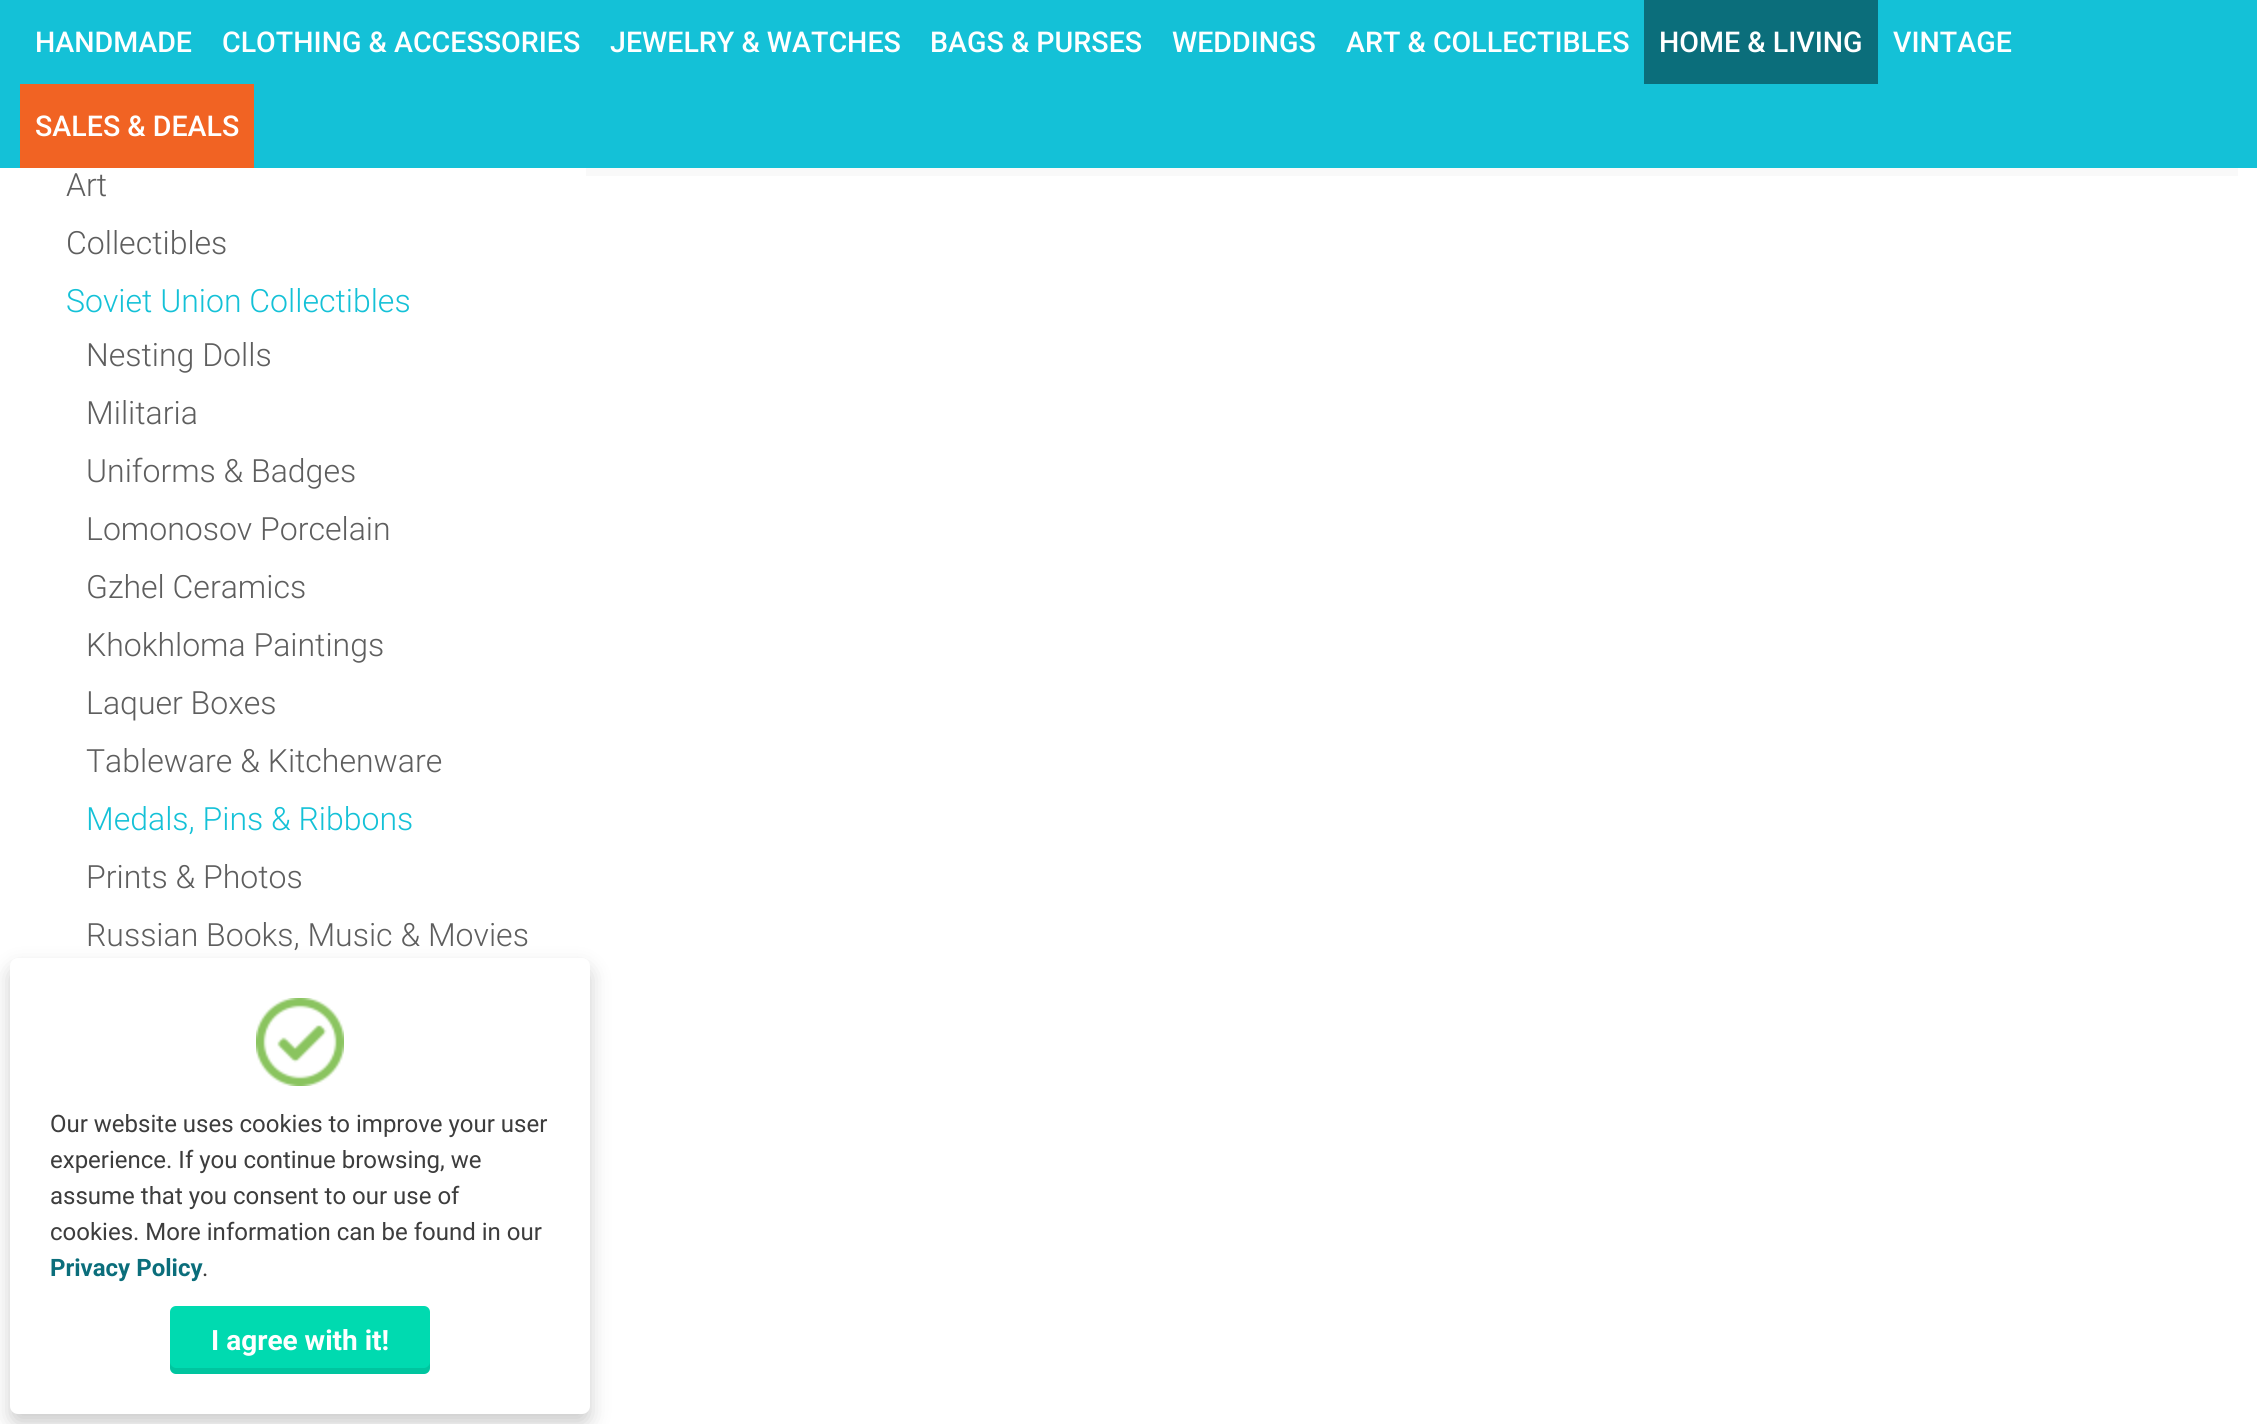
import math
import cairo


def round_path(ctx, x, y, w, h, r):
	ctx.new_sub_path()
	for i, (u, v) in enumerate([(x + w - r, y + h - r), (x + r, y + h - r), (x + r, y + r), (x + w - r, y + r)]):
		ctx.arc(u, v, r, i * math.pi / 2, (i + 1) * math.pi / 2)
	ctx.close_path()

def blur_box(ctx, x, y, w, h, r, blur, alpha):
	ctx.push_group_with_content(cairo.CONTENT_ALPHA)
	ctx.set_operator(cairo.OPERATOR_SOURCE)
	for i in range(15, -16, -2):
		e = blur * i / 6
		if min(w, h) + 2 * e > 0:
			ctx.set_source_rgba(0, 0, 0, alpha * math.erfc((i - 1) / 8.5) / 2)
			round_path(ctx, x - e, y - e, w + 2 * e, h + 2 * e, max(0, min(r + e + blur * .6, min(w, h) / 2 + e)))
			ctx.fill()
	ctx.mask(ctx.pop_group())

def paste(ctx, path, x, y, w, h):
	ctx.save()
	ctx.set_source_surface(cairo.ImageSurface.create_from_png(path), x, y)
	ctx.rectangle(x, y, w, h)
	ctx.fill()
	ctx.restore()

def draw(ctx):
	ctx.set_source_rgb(1, 1, 1)
	ctx.paint()
	ctx.set_source_rgb(0.082, 0.757, 0.843)
	ctx.rectangle(0, 0, 2257, 168)
	ctx.fill()
	ctx.select_font_face('Roboto Medium')
	ctx.set_font_size(28.6)
	ctx.set_source_rgb(1, 1, 1)
	for x, y, s in [
		(35, 52, 'HANDMADE'),
		(222, 52, 'CLOTHING & ACCESSORIES'),
		(610, 52, 'JEWELRY & WATCHES'),
		(930, 52, 'BAGS & PURSES'),
		(1172, 52, 'WEDDINGS'),
		(1346, 52, 'ART & COLLECTIBLES'),
	]:
		ctx.move_to(x, y)
		ctx.show_text(s)
	ctx.set_source_rgb(0.043, 0.431, 0.482)
	ctx.rectangle(1644, 0, 234, 84)
	ctx.fill()
	ctx.set_source_rgb(1, 1, 1)
	ctx.move_to(1659, 52)
	ctx.show_text('HOME & LIVING')
	ctx.move_to(1893, 52)
	ctx.show_text('VINTAGE')
	ctx.set_source_rgb(0.945, 0.388, 0.137)
	ctx.rectangle(20, 84, 234, 84)
	ctx.fill()
	ctx.set_source_rgb(1, 1, 1)
	ctx.move_to(35, 136)
	ctx.show_text('SALES & DEALS')
	ctx.set_source_rgb(0.973, 0.976, 0.976)
	ctx.rectangle(586, 168, 1652, 8)
	ctx.fill()
	ctx.select_font_face('Roboto Light')
	ctx.set_font_size(32)
	ctx.set_source_rgb(0.369, 0.369, 0.369)
	ctx.move_to(66, 196)
	ctx.show_text('Art')
	ctx.move_to(66, 254)
	ctx.show_text('Collectibles')
	ctx.set_source_rgb(0.082, 0.757, 0.843)
	ctx.move_to(66, 312)
	ctx.show_text('Soviet Union Collectibles')
	ctx.set_source_rgb(0.369, 0.369, 0.369)
	for x, y, s in [
		(86, 366, 'Nesting Dolls'),
		(86, 424, 'Militaria'),
		(86, 482, 'Uniforms & Badges'),
		(86, 540, 'Lomonosov Porcelain'),
		(86, 598, 'Gzhel Ceramics'),
		(86, 656, 'Khokhloma Paintings'),
		(86, 714, 'Laquer Boxes'),
		(86, 772, 'Tableware & Kitchenware'),
	]:
		ctx.move_to(x, y)
		ctx.show_text(s)
	ctx.set_source_rgb(0.082, 0.757, 0.843)
	ctx.move_to(86, 830)
	ctx.show_text('Medals, Pins & Ribbons')
	ctx.set_source_rgb(0.369, 0.369, 0.369)
	ctx.move_to(86, 888)
	ctx.show_text('Prints & Photos')
	ctx.move_to(86, 946)
	ctx.show_text('Russian Books, Music & Movies')
	ctx.set_source_rgb(0, 0, 0)
	blur_box(ctx, 10, 968, 580, 456, 8, 10, 0.2)
	ctx.set_source_rgb(1, 1, 1)
	round_path(ctx, 10, 958, 580, 456, 8)
	ctx.fill()
	paste(ctx, 'media/1.png', 256, 998, 88, 88)
	ctx.select_font_face('Roboto')
	ctx.set_font_size(24)
	ctx.set_source_rgb(0.239, 0.239, 0.239)
	for x, y, s in [
		(50, 1132, 'Our website uses cookies to improve your user'),
		(50, 1168, 'experience. If you continue browsing, we'),
		(50, 1204, 'assume that you consent to our use of'),
		(50, 1240, 'cookies. More information can be found in our'),
	]:
		ctx.move_to(x, y)
		ctx.show_text(s)
	ctx.select_font_face('Roboto', cairo.FONT_SLANT_NORMAL, cairo.FONT_WEIGHT_BOLD)
	ctx.set_source_rgb(0.043, 0.431, 0.482)
	ctx.move_to(50, 1276)
	ctx.show_text('Privacy Policy')
	ctx.select_font_face('Roboto')
	ctx.set_source_rgb(0.239, 0.239, 0.239)
	ctx.move_to(202, 1276)
	ctx.show_text('.')
	ctx.set_source_rgb(0, 0.855, 0.69)
	round_path(ctx, 170, 1306, 260, 68, 6)
	ctx.fill()
	ctx.set_source_rgba(0, 0, 0, 0.1)
	ctx.new_path()
	ctx.move_to(170, 1362)
	ctx.line_to(170, 1368)
	ctx.curve_to(170, 1371, 173, 1374, 176, 1374)
	ctx.line_to(424, 1374)
	ctx.curve_to(427, 1374, 430, 1371, 430, 1368)
	ctx.line_to(430, 1362)
	ctx.curve_to(430, 1365, 427, 1368, 424, 1368)
	ctx.line_to(176, 1368)
	ctx.curve_to(173, 1368, 170, 1365, 170, 1362)
	ctx.close_path()
	ctx.fill()
	ctx.select_font_face('Roboto', cairo.FONT_SLANT_NORMAL, cairo.FONT_WEIGHT_BOLD)
	ctx.set_font_size(28)
	ctx.set_source_rgb(1, 1, 1)
	ctx.move_to(211, 1350)
	ctx.show_text('I agree with it!')


surface = cairo.ImageSurface(cairo.FORMAT_RGB24, 2257, 1424)
ctx = cairo.Context(surface)
options = cairo.FontOptions()
options.set_hint_metrics(cairo.HINT_METRICS_OFF)
options.set_hint_style(cairo.HINT_STYLE_NONE)
ctx.set_font_options(options)
ctx.set_miter_limit(4)
draw(ctx)
surface.write_to_png('image.png')
